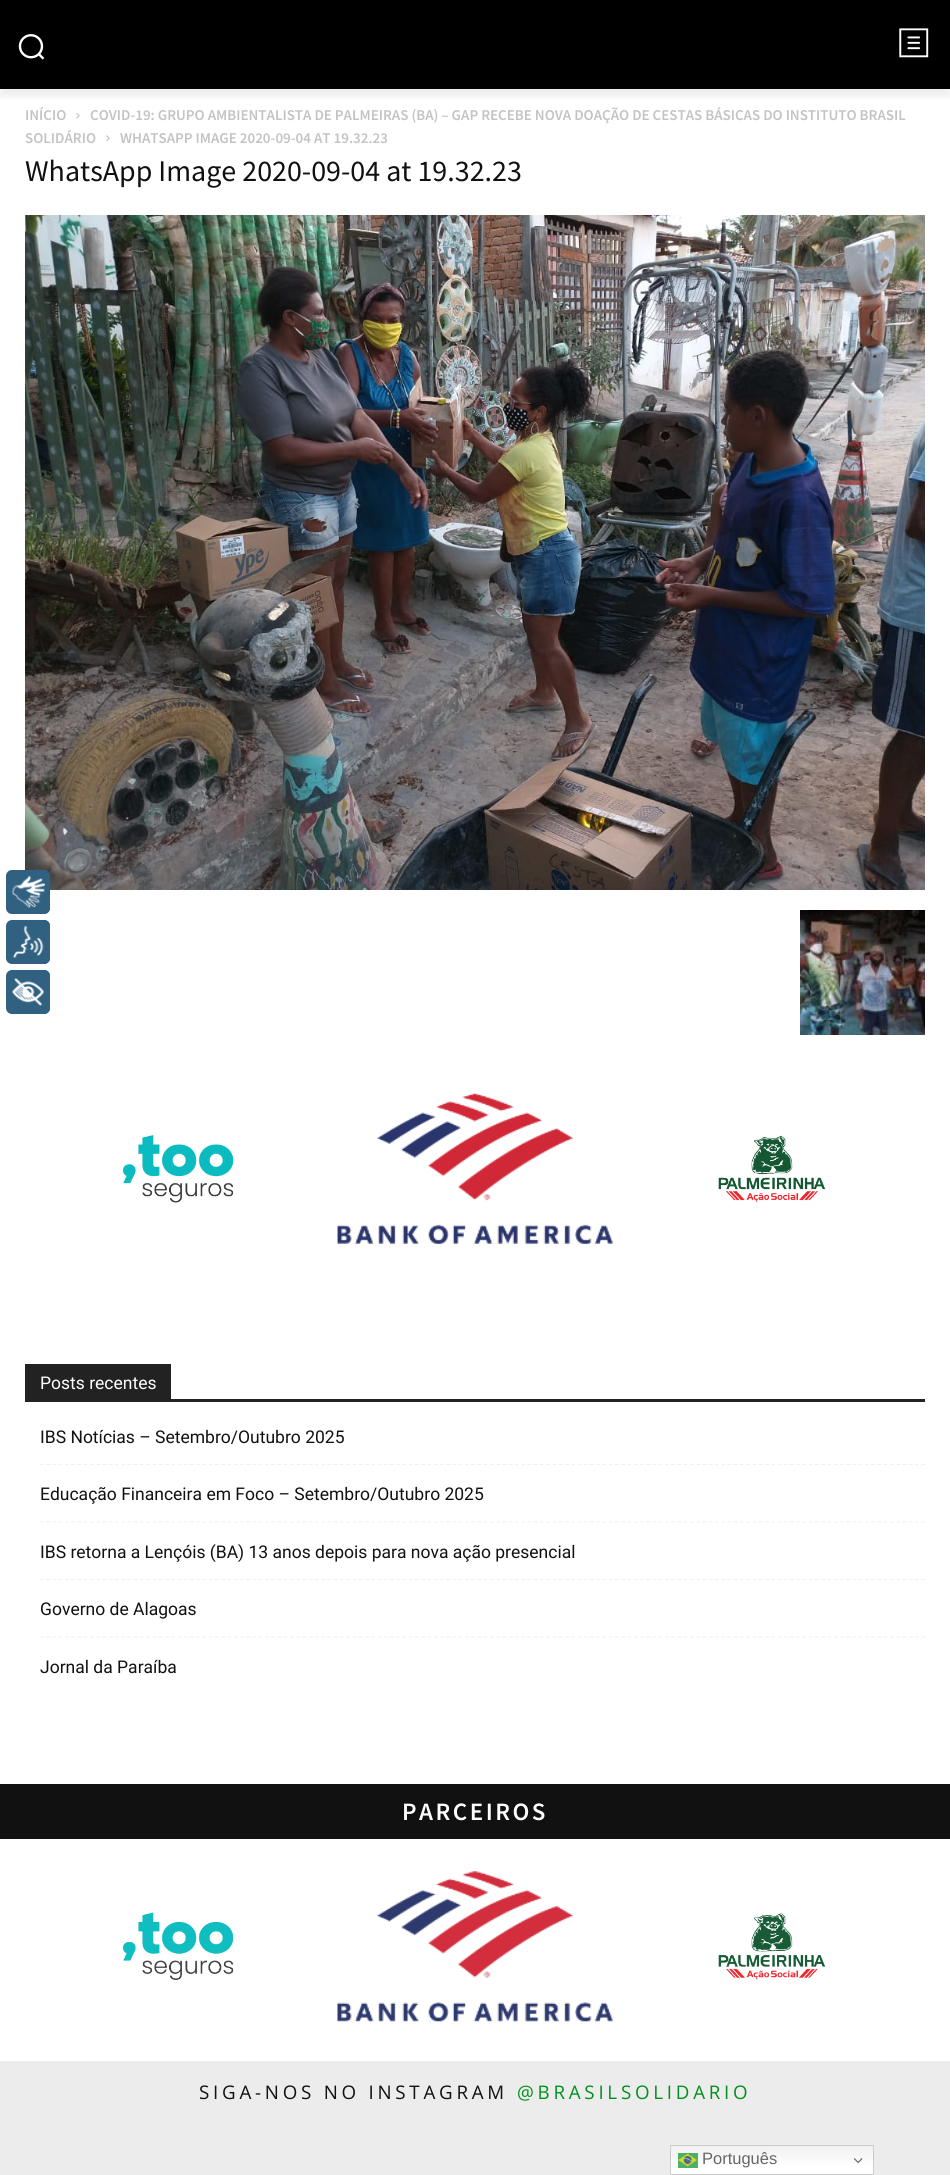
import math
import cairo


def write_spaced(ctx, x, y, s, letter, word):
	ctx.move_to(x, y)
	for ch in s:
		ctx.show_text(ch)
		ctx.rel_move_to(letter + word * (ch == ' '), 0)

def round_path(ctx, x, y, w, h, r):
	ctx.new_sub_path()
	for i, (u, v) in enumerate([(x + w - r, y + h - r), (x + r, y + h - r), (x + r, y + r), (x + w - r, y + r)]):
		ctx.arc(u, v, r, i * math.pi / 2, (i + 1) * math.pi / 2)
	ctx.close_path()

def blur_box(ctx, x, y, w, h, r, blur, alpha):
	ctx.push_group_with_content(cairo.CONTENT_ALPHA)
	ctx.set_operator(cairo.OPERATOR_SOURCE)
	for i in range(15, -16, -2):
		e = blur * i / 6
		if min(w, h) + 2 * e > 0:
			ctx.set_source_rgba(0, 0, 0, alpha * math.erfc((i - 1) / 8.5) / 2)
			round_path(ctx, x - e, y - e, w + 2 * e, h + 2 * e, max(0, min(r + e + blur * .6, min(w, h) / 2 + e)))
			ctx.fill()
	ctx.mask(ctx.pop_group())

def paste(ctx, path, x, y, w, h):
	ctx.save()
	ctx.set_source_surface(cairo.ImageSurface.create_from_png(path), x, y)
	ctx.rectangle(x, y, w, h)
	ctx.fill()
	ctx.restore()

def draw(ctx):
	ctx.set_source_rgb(1, 1, 1)
	ctx.paint()
	ctx.set_source_rgb(0, 0, 0)
	ctx.rectangle(0, 0, 950, 89)
	ctx.fill()
	paste(ctx, 'media/1.png', 18, 34, 27, 26)
	paste(ctx, 'media/2.png', 899, 28, 30, 30)
	ctx.save()
	ctx.rectangle(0, 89, 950, 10)
	ctx.clip()
	ctx.set_source_rgb(0, 0, 0)
	blur_box(ctx, 0, 8, 950, 88, 0, 5, 0.08)
	ctx.restore()
	ctx.select_font_face('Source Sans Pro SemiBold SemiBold')
	ctx.set_font_size(15)
	ctx.set_source_rgb(0.765, 0.765, 0.765)
	ctx.move_to(25, 120)
	ctx.show_text('INÍCIO')
	paste(ctx, 'media/3.png', 76, 112, 4, 7)
	ctx.move_to(90, 120)
	ctx.show_text('COVID-19: GRUPO AMBIENTALISTA DE PALMEIRAS (BA) – GAP RECEBE NOVA DOAÇÃO DE CESTAS BÁSICAS DO INSTITUTO BRASIL')
	ctx.move_to(25, 143)
	ctx.show_text('SOLIDÁRIO')
	paste(ctx, 'media/4.png', 106, 135, 4, 6)
	ctx.move_to(120, 143)
	ctx.show_text('WHATSAPP IMAGE 2020-09-04 AT 19.32.23')
	ctx.select_font_face('Source Sans Pro')
	ctx.set_font_size(30)
	ctx.set_source_rgb(0.067, 0.067, 0.067)
	ctx.move_to(25, 181)
	ctx.show_text('WhatsApp Image 2020-09-04 at 19.32.23')
	paste(ctx, 'media/5.png', 25, 215, 900, 675)
	paste(ctx, 'media/6.png', 800, 910, 125, 125)
	paste(ctx, 'media/7.png', 123, 1135, 111, 68)
	paste(ctx, 'media/8.png', 337, 1093, 276, 151)
	paste(ctx, 'media/9.png', 718, 1135, 108, 67)
	ctx.set_source_rgb(0.133, 0.133, 0.133)
	ctx.rectangle(25, 1399, 900, 3)
	ctx.fill()
	ctx.rectangle(25, 1364, 146, 35)
	ctx.fill()
	ctx.select_font_face('Roboto')
	ctx.set_font_size(17.5)
	ctx.set_source_rgb(1, 1, 1)
	ctx.move_to(40, 1389)
	ctx.show_text('Posts recentes')
	ctx.new_path()
	ctx.move_to(40, 1464.5)
	ctx.line_to(925, 1464.5)
	ctx.set_source_rgb(0.945, 0.945, 0.945)
	ctx.set_line_width(1.2)
	ctx.set_dash([3.75, 2.5])
	ctx.stroke()
	ctx.set_source_rgb(0.067, 0.067, 0.067)
	ctx.move_to(40, 1443)
	ctx.show_text('IBS Notícias – Setembro/Outubro 2025')
	ctx.new_path()
	ctx.move_to(40, 1522)
	ctx.line_to(925, 1522)
	ctx.set_source_rgb(0.945, 0.945, 0.945)
	ctx.stroke()
	ctx.set_source_rgb(0.067, 0.067, 0.067)
	ctx.move_to(40, 1500)
	ctx.show_text('Educação Financeira em Foco – Setembro/Outubro 2025')
	ctx.new_path()
	ctx.move_to(40, 1579.5)
	ctx.line_to(925, 1579.5)
	ctx.set_source_rgb(0.945, 0.945, 0.945)
	ctx.stroke()
	ctx.set_source_rgb(0.067, 0.067, 0.067)
	ctx.move_to(40, 1558)
	ctx.show_text('IBS retorna a Lençóis (BA) 13 anos depois para nova ação presencial')
	ctx.new_path()
	ctx.move_to(40, 1637)
	ctx.line_to(925, 1637)
	ctx.set_source_rgb(0.945, 0.945, 0.945)
	ctx.stroke()
	ctx.set_source_rgb(0.067, 0.067, 0.067)
	ctx.move_to(40, 1615)
	ctx.show_text('Governo de Alagoas')
	ctx.move_to(40, 1673)
	ctx.show_text('Jornal da Paraíba')
	ctx.rectangle(0, 1784, 950, 55)
	ctx.fill()
	ctx.select_font_face('Source Sans Pro SemiBold SemiBold')
	ctx.set_font_size(25)
	ctx.set_source_rgb(1, 1, 1)
	write_spaced(ctx, 402, 1820, 'PARCEIROS', 2.5, 0)
	paste(ctx, 'media/10.png', 123, 1912, 111, 68)
	paste(ctx, 'media/11.png', 337, 1871, 276, 151)
	paste(ctx, 'media/12.png', 718, 1913, 108, 67)
	ctx.set_source_rgb(0.922, 0.922, 0.922)
	ctx.rectangle(0, 2061, 950, 114)
	ctx.fill()
	ctx.select_font_face('Open Sans')
	ctx.set_font_size(18.75)
	ctx.set_source_rgb(0.067, 0.067, 0.067)
	write_spaced(ctx, 199, 2099, 'SIGA-NOS NO INSTAGRAM', 3.75, 0)
	ctx.set_source_rgb(0, 0.569, 0.114)
	write_spaced(ctx, 517, 2099, '@BRASILSOLIDARIO', 3.75, 0)
	ctx.set_source_rgb(0.192, 0.38, 0.506)
	round_path(ctx, 6, 870, 44, 44, 6)
	ctx.fill()
	paste(ctx, 'media/13.png', 11, 875, 34, 33)
	ctx.save()
	round_path(ctx, 6, 870, 44, 44, 6)
	ctx.clip()
	ctx.rectangle(45, 870, 5, 44)
	ctx.fill()
	ctx.restore()
	round_path(ctx, 6, 920, 44, 44, 6)
	ctx.fill()
	paste(ctx, 'media/14.png', 13, 926, 31, 32)
	ctx.new_path()
	ctx.move_to(44, 920)
	ctx.curve_to(47.5, 920, 50, 922.5, 50, 926)
	ctx.line_to(50, 958)
	ctx.curve_to(50, 961.5, 47.5, 964, 44, 964)
	ctx.close_path()
	ctx.fill()
	round_path(ctx, 6, 970, 44, 44, 6)
	ctx.fill()
	paste(ctx, 'media/15.png', 12, 978, 32, 28)
	ctx.new_path()
	ctx.move_to(44, 970)
	ctx.curve_to(47.5, 970, 50, 972.5, 50, 976)
	ctx.line_to(50, 1008)
	ctx.curve_to(50, 1011.5, 47.5, 1014, 44, 1014)
	ctx.close_path()
	ctx.fill()
	gradient = cairo.LinearGradient(772, 2145, 772, 2175)
	gradient.add_color_stop_rgba(0, 0.937, 0.937, 0.937, 1)
	gradient.add_color_stop_rgba(0.7, 1, 1, 1, 1)
	ctx.set_source(gradient)
	ctx.rectangle(671, 2146, 202, 28)
	ctx.fill()
	ctx.rectangle(670.5, 2145.5, 203, 29)
	ctx.set_source_rgb(0.8, 0.8, 0.8)
	ctx.set_line_width(1)
	ctx.set_dash([])
	ctx.stroke()
	paste(ctx, 'media/16.png', 678, 2153, 20, 15)
	ctx.select_font_face('Liberation Sans')
	ctx.set_font_size(16.5)
	ctx.set_source_rgb(0.4, 0.4, 0.4)
	ctx.move_to(702, 2164)
	ctx.show_text('Português')
	paste(ctx, 'media/17.png', 854, 2158, 9, 6)


surface = cairo.ImageSurface(cairo.FORMAT_RGB24, 950, 2175)
ctx = cairo.Context(surface)
options = cairo.FontOptions()
options.set_hint_metrics(cairo.HINT_METRICS_OFF)
options.set_hint_style(cairo.HINT_STYLE_NONE)
ctx.set_font_options(options)
ctx.set_miter_limit(4)
draw(ctx)
surface.write_to_png('image.png')
